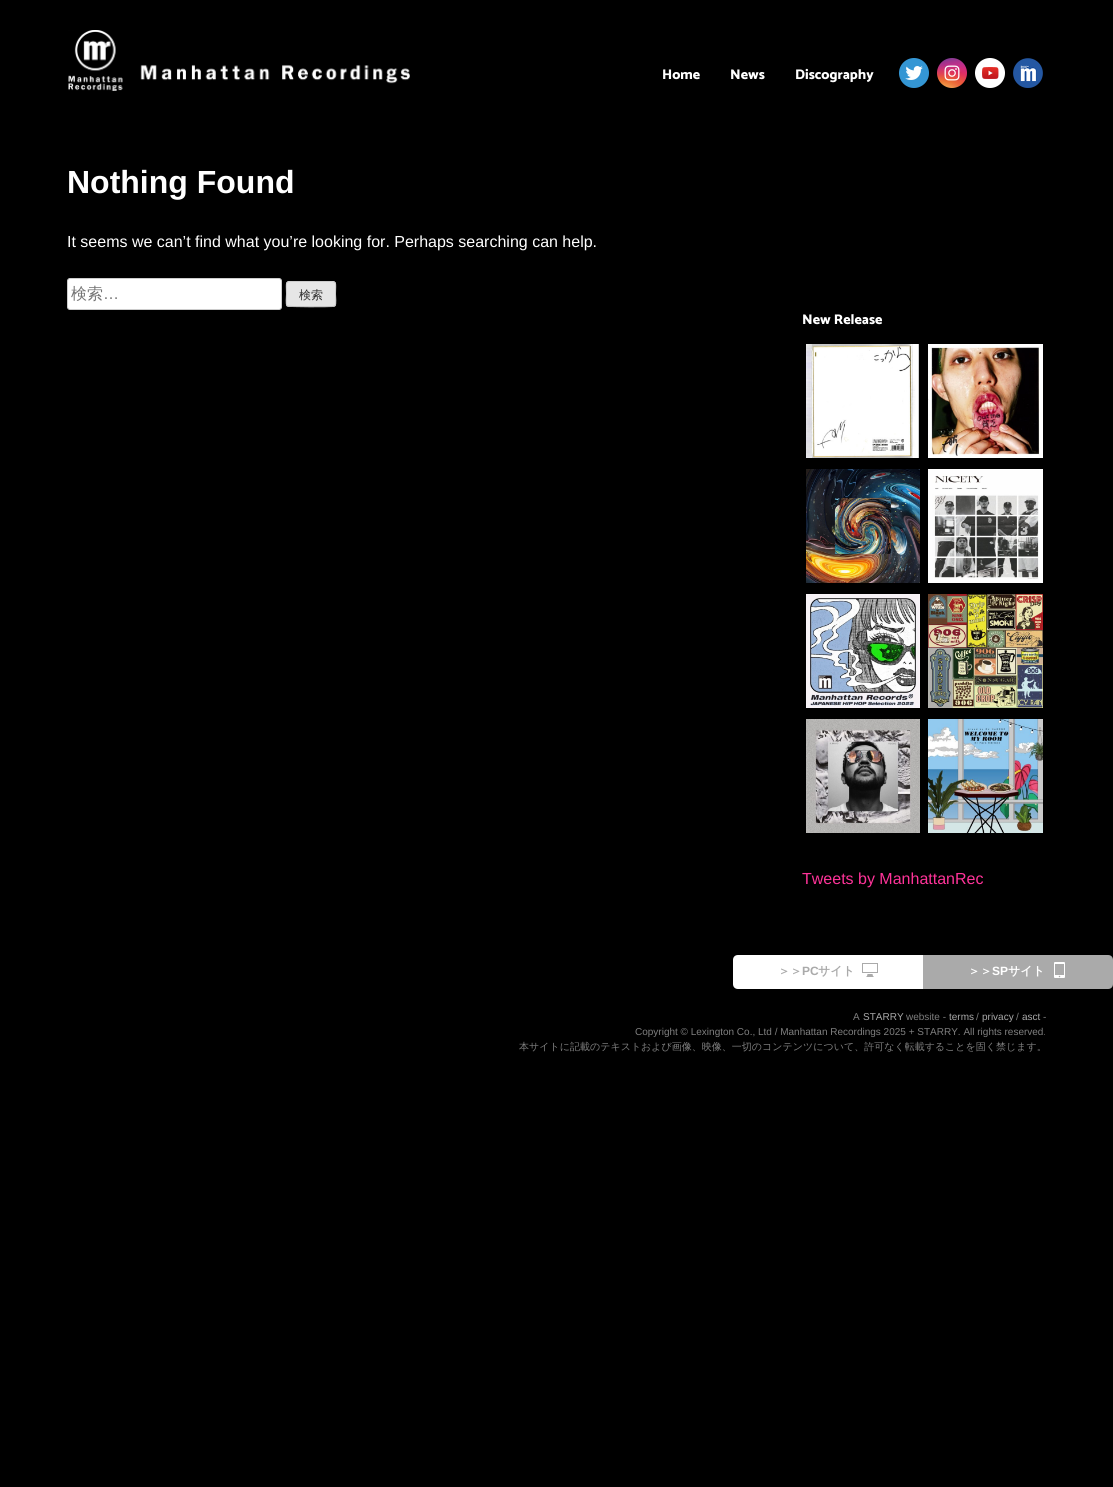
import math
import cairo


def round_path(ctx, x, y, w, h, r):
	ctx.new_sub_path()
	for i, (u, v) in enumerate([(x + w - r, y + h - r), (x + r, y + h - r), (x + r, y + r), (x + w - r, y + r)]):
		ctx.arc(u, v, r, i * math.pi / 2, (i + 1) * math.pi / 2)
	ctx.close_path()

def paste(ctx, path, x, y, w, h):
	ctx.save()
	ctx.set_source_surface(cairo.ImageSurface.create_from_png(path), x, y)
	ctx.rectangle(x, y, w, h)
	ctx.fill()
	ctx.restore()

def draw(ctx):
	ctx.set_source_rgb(0, 0, 0)
	ctx.paint()
	paste(ctx, 'media/1.png', 68, 30, 342, 61)
	ctx.select_font_face('Catamaran Thin')
	ctx.set_font_size(14)
	ctx.set_source_rgb(1, 1, 1)
	for x, y, s in [
		(662, 79, 'Home'),
		(730, 79, 'News'),
		(795, 79, 'Discography'),
	]:
		ctx.move_to(x, y)
		ctx.show_text(s)
	paste(ctx, 'media/2.png', 899, 58, 30, 30)
	paste(ctx, 'media/3.png', 937, 58, 30, 30)
	paste(ctx, 'media/4.png', 975, 58, 30, 30)
	paste(ctx, 'media/5.png', 1013, 58, 30, 30)
	ctx.select_font_face('Liberation Sans', cairo.FONT_SLANT_NORMAL, cairo.FONT_WEIGHT_BOLD)
	ctx.set_font_size(32)
	ctx.move_to(67, 193)
	ctx.show_text('Nothing Found')
	ctx.select_font_face('Liberation Sans')
	ctx.set_font_size(16)
	ctx.move_to(67, 247)
	ctx.show_text('It seems we can’t find what you’re looking for. Perhaps searching can help.')
	round_path(ctx, 67.5, 278.5, 214, 31, 2.5)
	ctx.fill_preserve()
	ctx.set_source_rgb(0.8, 0.8, 0.8)
	ctx.set_line_width(1)
	ctx.stroke()
	ctx.select_font_face('WenQuanYi Zen Hei Medium')
	ctx.set_source_rgb(0.459, 0.459, 0.459)
	ctx.move_to(71, 299)
	ctx.show_text('検索')
	ctx.select_font_face('Liberation Sans')
	ctx.move_to(103, 299)
	ctx.show_text('…')
	ctx.set_source_rgb(0.902, 0.902, 0.902)
	round_path(ctx, 286, 281, 50, 26, 3)
	ctx.fill()
	ctx.new_path()
	ctx.move_to(335, 306)
	ctx.line_to(333, 306.5)
	ctx.curve_to(329, 307, 288.5, 307, 287, 306)
	ctx.set_source_rgb(0.733, 0.733, 0.733)
	ctx.stroke()
	ctx.new_path()
	ctx.move_to(287, 306)
	ctx.curve_to(285.5, 304, 286.5, 296.5, 286.5, 294)
	ctx.curve_to(286.5, 281, 284, 281.5, 296.5, 281.5)
	ctx.line_to(325.5, 281.5)
	ctx.curve_to(338, 281.5, 335.5, 281, 335.5, 294)
	ctx.curve_to(335.5, 296.5, 336.5, 304, 335, 306)
	ctx.set_source_rgb(0.8, 0.8, 0.8)
	ctx.stroke()
	ctx.select_font_face('WenQuanYi Zen Hei Medium')
	ctx.set_font_size(12)
	ctx.set_source_rgb(0.18, 0.18, 0.18)
	ctx.move_to(299, 299)
	ctx.show_text('検索')
	ctx.select_font_face('Catamaran Thin')
	ctx.set_font_size(14)
	ctx.set_source_rgb(1, 1, 1)
	ctx.move_to(802, 324)
	ctx.show_text('New Release')
	paste(ctx, 'media/6.png', 806, 344, 113, 114)
	paste(ctx, 'media/7.png', 928, 344, 115, 114)
	paste(ctx, 'media/8.png', 806, 469, 114, 114)
	paste(ctx, 'media/9.png', 928, 469, 115, 114)
	paste(ctx, 'media/10.png', 806, 594, 114, 114)
	paste(ctx, 'media/11.png', 928, 594, 115, 114)
	paste(ctx, 'media/12.png', 806, 719, 114, 114)
	paste(ctx, 'media/13.png', 928, 719, 115, 114)
	ctx.select_font_face('Liberation Sans')
	ctx.set_font_size(16)
	ctx.set_source_rgb(1, 0.2, 0.6)
	ctx.move_to(802, 884)
	ctx.show_text('Tweets by ManhattanRec')
	ctx.set_source_rgb(1, 1, 1)
	ctx.new_path()
	ctx.move_to(738, 955)
	ctx.line_to(923, 955)
	ctx.line_to(923, 989)
	ctx.line_to(738, 989)
	ctx.curve_to(735, 989, 733, 987, 733, 984)
	ctx.line_to(733, 960)
	ctx.curve_to(733, 957, 735, 955, 738, 955)
	ctx.close_path()
	ctx.fill()
	ctx.select_font_face('WenQuanYi Zen Hei', cairo.FONT_SLANT_NORMAL, cairo.FONT_WEIGHT_BOLD)
	ctx.set_font_size(12)
	ctx.set_source_rgb(0.667, 0.667, 0.667)
	ctx.move_to(778, 975)
	ctx.show_text('＞＞')
	ctx.select_font_face('Liberation Sans', cairo.FONT_SLANT_NORMAL, cairo.FONT_WEIGHT_BOLD)
	ctx.move_to(802, 975)
	ctx.show_text('PC')
	ctx.select_font_face('WenQuanYi Zen Hei', cairo.FONT_SLANT_NORMAL, cairo.FONT_WEIGHT_BOLD)
	ctx.move_to(818, 975)
	ctx.show_text('サイト')
	paste(ctx, 'media/14.png', 862, 963, 16, 14)
	ctx.new_path()
	ctx.move_to(923, 955)
	ctx.line_to(1108, 955)
	ctx.curve_to(1111, 955, 1113, 957, 1113, 960)
	ctx.line_to(1113, 984)
	ctx.curve_to(1113, 987, 1111, 989, 1108, 989)
	ctx.line_to(923, 989)
	ctx.close_path()
	ctx.fill()
	ctx.set_source_rgb(1, 1, 1)
	ctx.move_to(968, 975)
	ctx.show_text('＞＞')
	ctx.select_font_face('Liberation Sans', cairo.FONT_SLANT_NORMAL, cairo.FONT_WEIGHT_BOLD)
	ctx.move_to(992, 975)
	ctx.show_text('SP')
	ctx.select_font_face('WenQuanYi Zen Hei', cairo.FONT_SLANT_NORMAL, cairo.FONT_WEIGHT_BOLD)
	ctx.move_to(1008, 975)
	ctx.show_text('サイト')
	paste(ctx, 'media/15.png', 1054, 962, 11, 16)
	ctx.select_font_face('Liberation Sans')
	ctx.set_font_size(10)
	ctx.set_source_rgb(0.498, 0.498, 0.498)
	ctx.move_to(853, 1020)
	ctx.show_text('A')
	ctx.set_source_rgb(0.667, 0.667, 0.667)
	ctx.move_to(863, 1020)
	ctx.show_text('STARRY')
	ctx.set_source_rgb(0.498, 0.498, 0.498)
	ctx.move_to(906, 1020)
	ctx.show_text('website -')
	ctx.set_source_rgb(0.667, 0.667, 0.667)
	ctx.move_to(949, 1020)
	ctx.show_text('terms')
	ctx.set_source_rgb(0.498, 0.498, 0.498)
	ctx.move_to(976, 1020)
	ctx.show_text('/')
	ctx.set_source_rgb(0.667, 0.667, 0.667)
	ctx.move_to(982, 1020)
	ctx.show_text('privacy')
	ctx.set_source_rgb(0.498, 0.498, 0.498)
	ctx.move_to(1016, 1020)
	ctx.show_text('/')
	ctx.set_source_rgb(0.667, 0.667, 0.667)
	ctx.move_to(1022, 1020)
	ctx.show_text('asct')
	ctx.set_source_rgb(0.498, 0.498, 0.498)
	ctx.move_to(1043, 1020)
	ctx.show_text('-')
	ctx.move_to(635, 1035)
	ctx.show_text('Copyright © Lexington Co., Ltd / Manhattan Recordings 2025 + STARRY. All rights reserved.')
	ctx.select_font_face('WenQuanYi Zen Hei Medium')
	ctx.move_to(519, 1050)
	ctx.show_text('本サイトに記載のテキストおよび画像、映像、一切のコンテンツについて、許可なく転載することを固く禁じます。')


surface = cairo.ImageSurface(cairo.FORMAT_RGB24, 1113, 1487)
ctx = cairo.Context(surface)
options = cairo.FontOptions()
options.set_hint_metrics(cairo.HINT_METRICS_OFF)
options.set_hint_style(cairo.HINT_STYLE_NONE)
ctx.set_font_options(options)
ctx.set_miter_limit(4)
draw(ctx)
surface.write_to_png('image.png')
